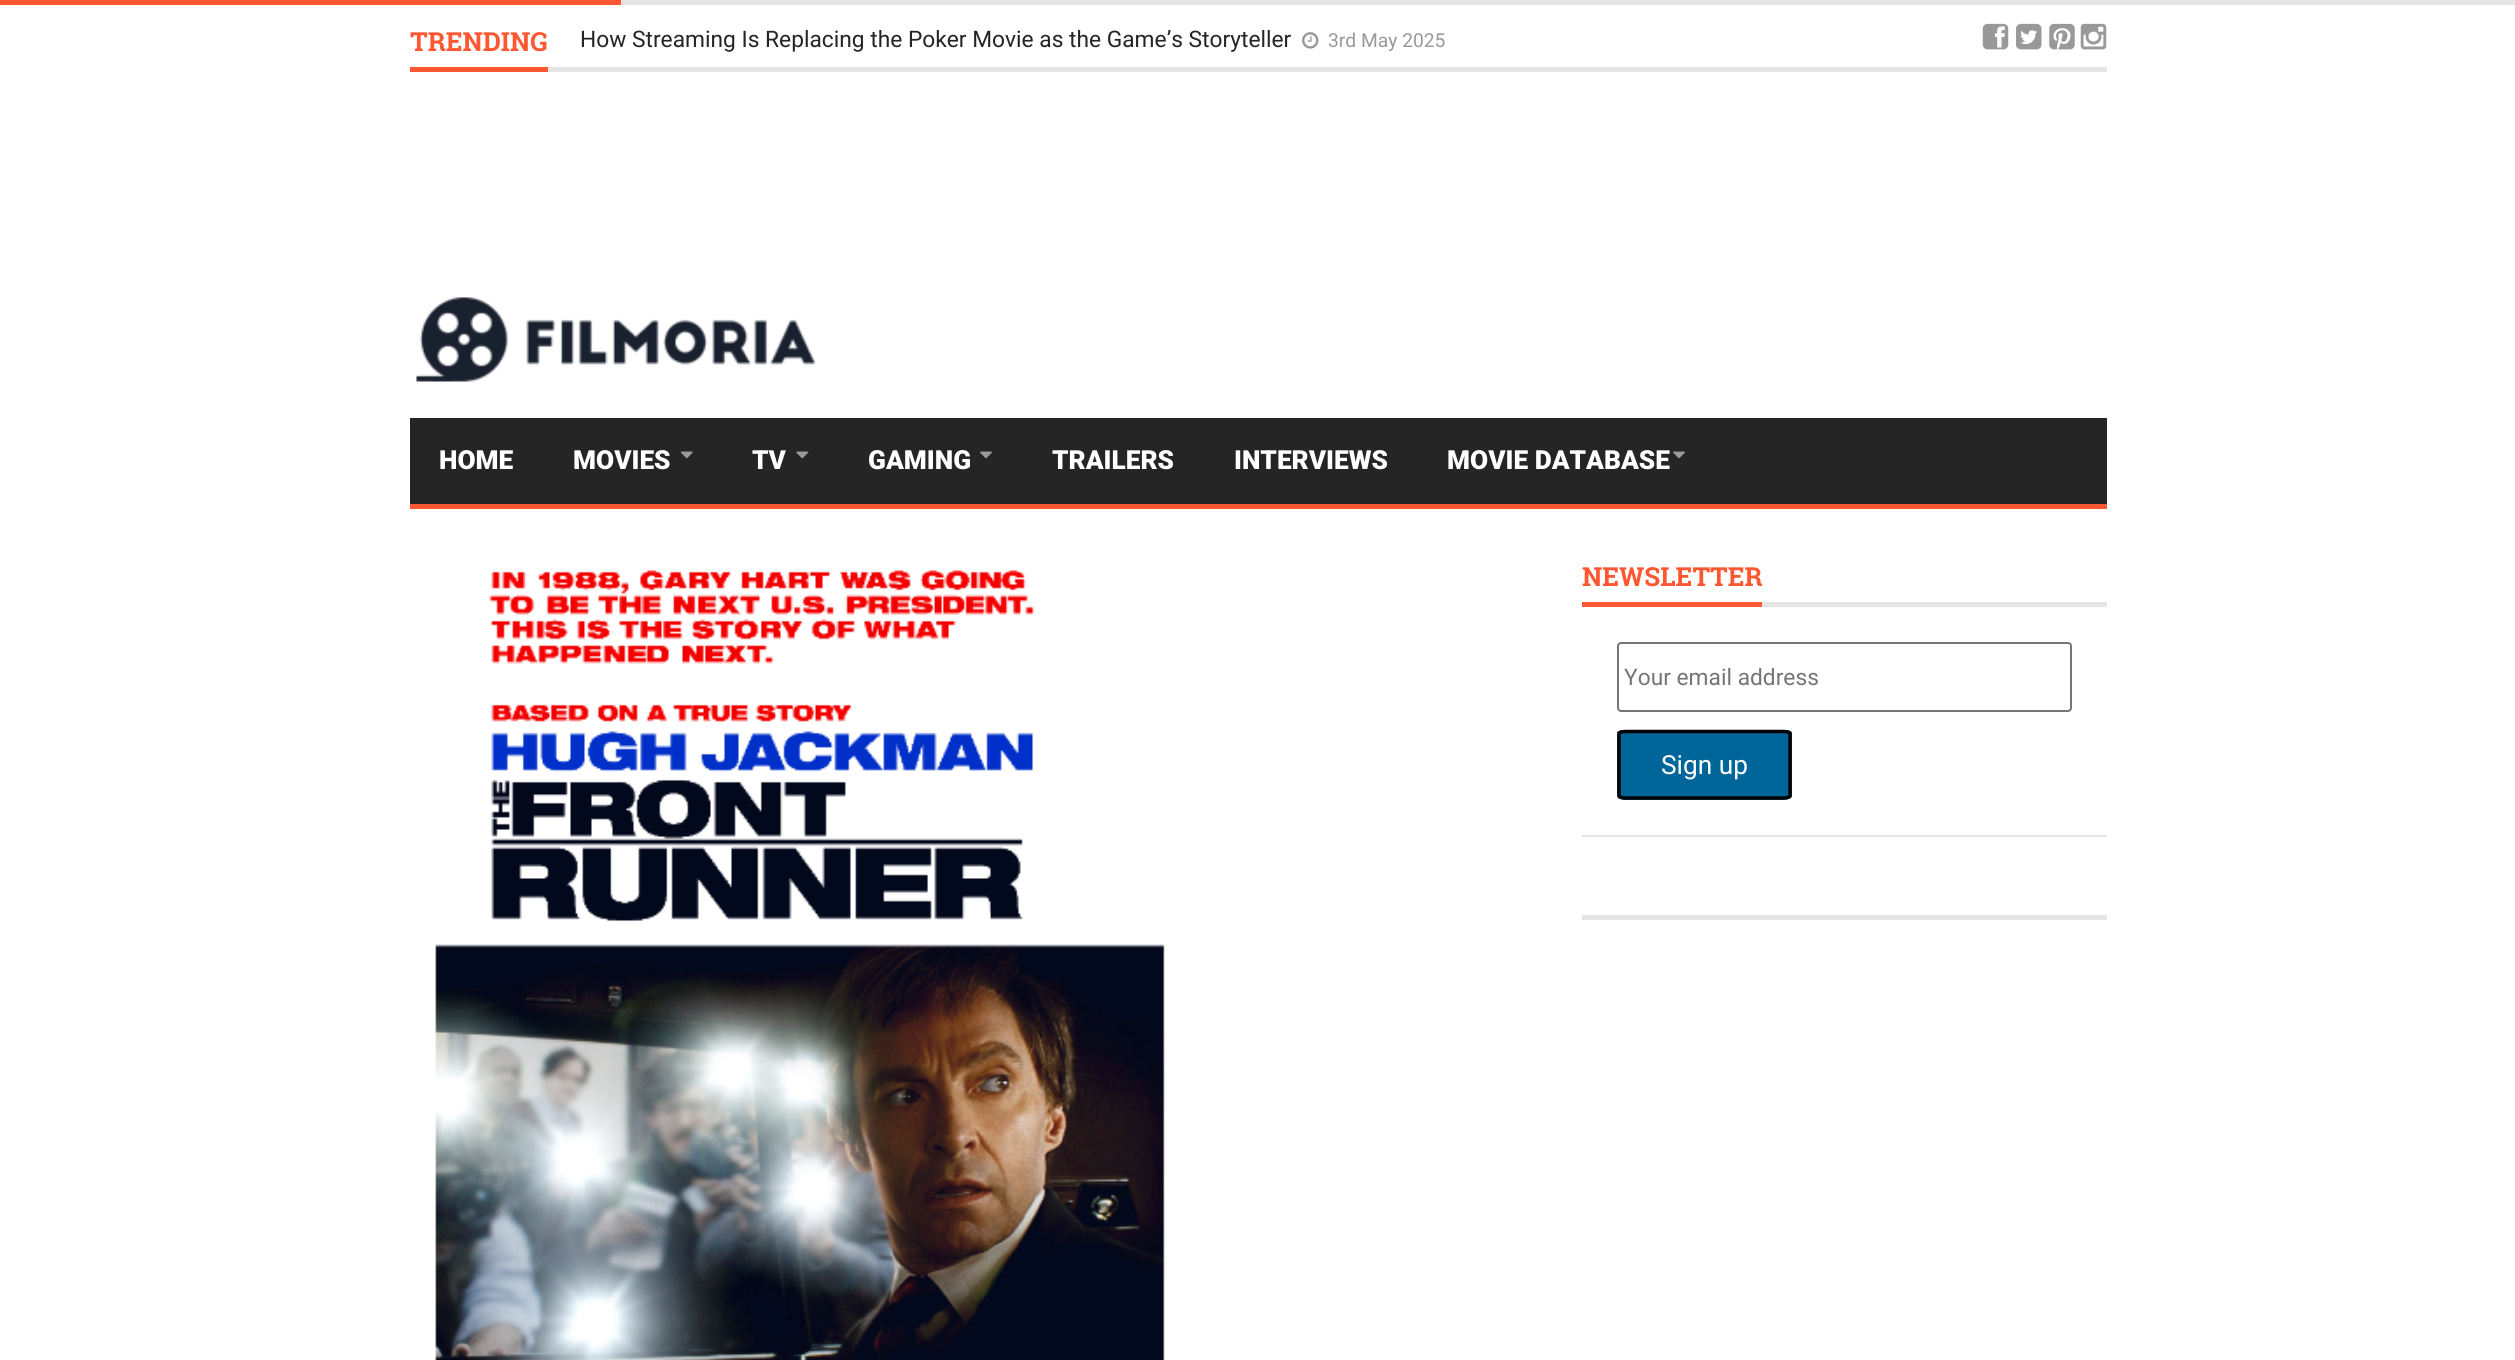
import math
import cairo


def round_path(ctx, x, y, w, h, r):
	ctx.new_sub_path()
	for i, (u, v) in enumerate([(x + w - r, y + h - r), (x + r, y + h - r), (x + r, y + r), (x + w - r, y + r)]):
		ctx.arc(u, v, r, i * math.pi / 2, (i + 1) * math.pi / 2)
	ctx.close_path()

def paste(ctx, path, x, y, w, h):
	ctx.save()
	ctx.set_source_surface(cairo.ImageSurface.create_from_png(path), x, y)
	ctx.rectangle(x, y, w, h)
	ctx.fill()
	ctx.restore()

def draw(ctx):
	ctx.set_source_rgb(1, 1, 1)
	ctx.paint()
	ctx.set_source_rgb(0.894, 0.894, 0.894)
	ctx.rectangle(621, 0, 1894, 5)
	ctx.fill()
	ctx.set_source_rgb(1, 0.341, 0.196)
	ctx.rectangle(0, 0, 621, 5)
	ctx.fill()
	ctx.set_source_rgb(0.894, 0.894, 0.894)
	ctx.rectangle(548, 67, 1559, 5)
	ctx.fill()
	ctx.set_source_rgb(1, 0.341, 0.196)
	ctx.rectangle(410, 67, 138, 5)
	ctx.fill()
	ctx.select_font_face('Roboto Slab', cairo.FONT_SLANT_NORMAL, cairo.FONT_WEIGHT_BOLD)
	ctx.set_font_size(26.25)
	ctx.move_to(410, 51)
	ctx.show_text('TRENDING')
	ctx.select_font_face('Roboto')
	ctx.set_font_size(22.75)
	ctx.set_source_rgb(0.145, 0.145, 0.145)
	ctx.move_to(580, 47)
	ctx.show_text('How Streaming Is Replacing the Poker Movie as the Game’s Storyteller')
	paste(ctx, 'media/1.png', 1302, 32, 17, 17)
	ctx.set_font_size(19.25)
	ctx.set_source_rgb(0.6, 0.6, 0.6)
	ctx.move_to(1328, 47)
	ctx.show_text('3rd May 2025')
	paste(ctx, 'media/2.png', 1982, 23, 27, 27)
	paste(ctx, 'media/3.png', 2016, 23, 26, 27)
	paste(ctx, 'media/4.png', 2049, 23, 26, 27)
	paste(ctx, 'media/5.png', 2080, 23, 27, 27)
	paste(ctx, 'media/6.png', 416, 297, 400, 85)
	ctx.set_source_rgb(1, 0.341, 0.196)
	ctx.rectangle(410, 504, 1697, 5)
	ctx.fill()
	ctx.set_source_rgb(0.145, 0.145, 0.145)
	ctx.rectangle(410, 418, 1697, 86)
	ctx.fill()
	ctx.select_font_face('Roboto Black')
	ctx.set_font_size(26.25)
	ctx.set_source_rgb(1, 1, 1)
	ctx.move_to(439, 469)
	ctx.show_text('HOME')
	ctx.move_to(573, 469)
	ctx.show_text('MOVIES')
	paste(ctx, 'media/7.png', 680, 451, 13, 8)
	ctx.move_to(752, 469)
	ctx.show_text('TV')
	paste(ctx, 'media/8.png', 796, 451, 13, 8)
	ctx.move_to(868, 469)
	ctx.show_text('GAMING')
	paste(ctx, 'media/9.png', 980, 451, 12, 8)
	for x, y, s in [
		(1052, 469, 'TRAILERS'),
		(1234, 469, 'INTERVIEWS'),
		(1447, 469, 'MOVIE DATABASE'),
	]:
		ctx.move_to(x, y)
		ctx.show_text(s)
	paste(ctx, 'media/9.png', 1673, 451, 12, 8)
	paste(ctx, 'media/10.png', 435, 570, 730, 790)
	ctx.set_source_rgb(0.894, 0.894, 0.894)
	ctx.rectangle(1762, 602, 345, 5)
	ctx.fill()
	ctx.set_source_rgb(1, 0.341, 0.196)
	ctx.rectangle(1582, 602, 180, 5)
	ctx.fill()
	ctx.select_font_face('Roboto Slab', cairo.FONT_SLANT_NORMAL, cairo.FONT_WEIGHT_BOLD)
	ctx.move_to(1582, 586)
	ctx.show_text('NEWSLETTER')
	ctx.set_source_rgb(0.894, 0.894, 0.894)
	ctx.rectangle(1582, 835, 525, 2)
	ctx.fill()
	round_path(ctx, 1618, 643, 453, 68, 3)
	ctx.set_source_rgb(0.463, 0.463, 0.463)
	ctx.stroke()
	ctx.select_font_face('Roboto')
	ctx.set_font_size(22.75)
	ctx.set_source_rgb(0.459, 0.459, 0.459)
	ctx.move_to(1624, 685)
	ctx.show_text('Your email address')
	ctx.set_source_rgb(0, 0.4, 0.6)
	ctx.new_path()
	ctx.move_to(1626, 730)
	ctx.line_to(1783, 730)
	ctx.curve_to(1788, 730, 1792, 731, 1792, 733)
	ctx.line_to(1792, 796)
	ctx.curve_to(1792, 798, 1788, 800, 1783, 800)
	ctx.line_to(1626, 800)
	ctx.curve_to(1621, 800, 1617, 798, 1617, 796)
	ctx.line_to(1617, 733)
	ctx.curve_to(1617, 731, 1621, 730, 1626, 730)
	ctx.close_path()
	ctx.fill()
	ctx.new_path()
	ctx.move_to(1626, 731.5)
	ctx.line_to(1783, 731.5)
	ctx.curve_to(1787, 731.5, 1790, 732.5, 1790, 733)
	ctx.line_to(1790, 796)
	ctx.curve_to(1790, 797, 1787, 798, 1783, 798)
	ctx.line_to(1626, 798)
	ctx.curve_to(1622, 798, 1619, 797, 1619, 796)
	ctx.line_to(1619, 733)
	ctx.curve_to(1619, 732.5, 1622, 731.5, 1626, 731.5)
	ctx.close_path()
	ctx.set_source_rgb(0, 0, 0)
	ctx.set_line_width(3.5)
	ctx.stroke()
	ctx.set_font_size(26.25)
	ctx.set_source_rgb(1, 1, 1)
	ctx.move_to(1661, 774)
	ctx.show_text('Sign up')
	ctx.set_source_rgb(0.894, 0.894, 0.894)
	ctx.rectangle(1582, 915, 525, 5)
	ctx.fill()


surface = cairo.ImageSurface(cairo.FORMAT_RGB24, 2515, 1360)
ctx = cairo.Context(surface)
options = cairo.FontOptions()
options.set_hint_metrics(cairo.HINT_METRICS_OFF)
options.set_hint_style(cairo.HINT_STYLE_NONE)
ctx.set_font_options(options)
ctx.set_miter_limit(4)
draw(ctx)
surface.write_to_png('image.png')
